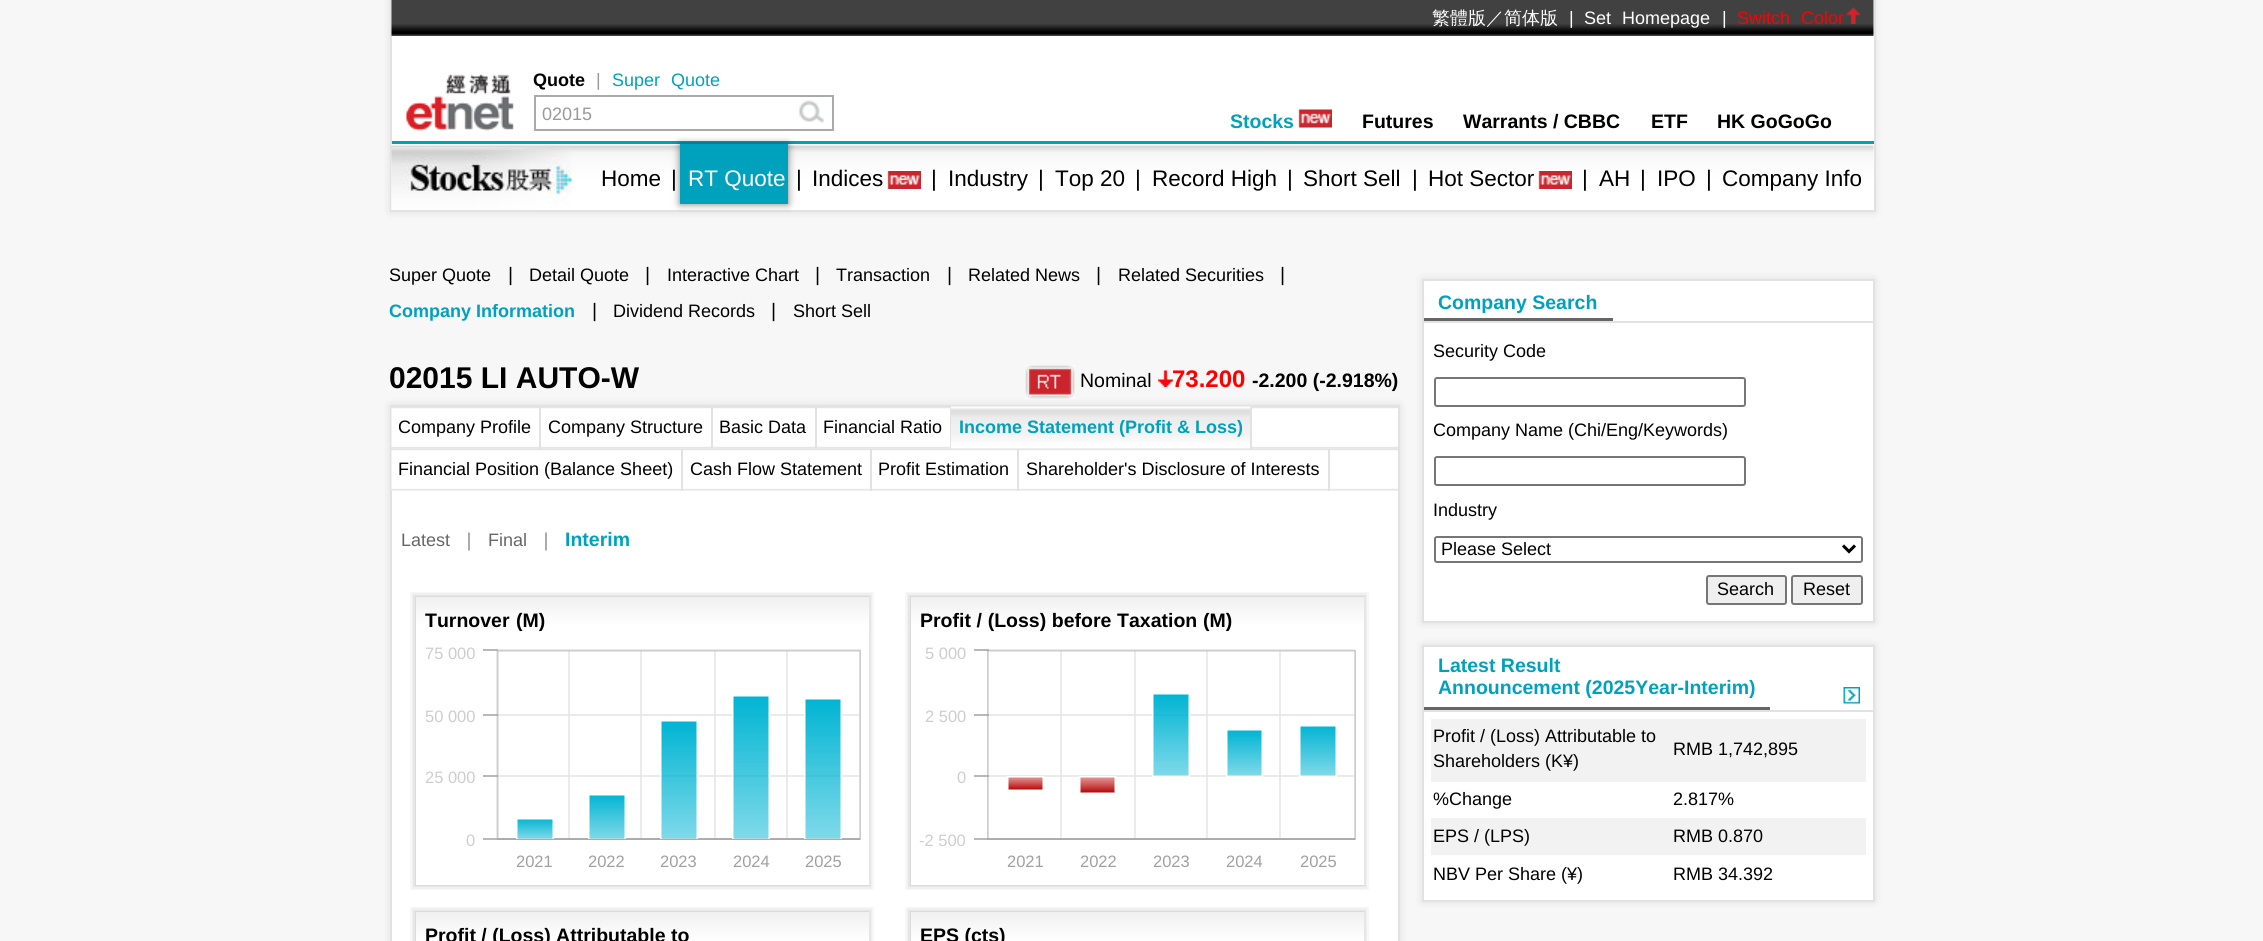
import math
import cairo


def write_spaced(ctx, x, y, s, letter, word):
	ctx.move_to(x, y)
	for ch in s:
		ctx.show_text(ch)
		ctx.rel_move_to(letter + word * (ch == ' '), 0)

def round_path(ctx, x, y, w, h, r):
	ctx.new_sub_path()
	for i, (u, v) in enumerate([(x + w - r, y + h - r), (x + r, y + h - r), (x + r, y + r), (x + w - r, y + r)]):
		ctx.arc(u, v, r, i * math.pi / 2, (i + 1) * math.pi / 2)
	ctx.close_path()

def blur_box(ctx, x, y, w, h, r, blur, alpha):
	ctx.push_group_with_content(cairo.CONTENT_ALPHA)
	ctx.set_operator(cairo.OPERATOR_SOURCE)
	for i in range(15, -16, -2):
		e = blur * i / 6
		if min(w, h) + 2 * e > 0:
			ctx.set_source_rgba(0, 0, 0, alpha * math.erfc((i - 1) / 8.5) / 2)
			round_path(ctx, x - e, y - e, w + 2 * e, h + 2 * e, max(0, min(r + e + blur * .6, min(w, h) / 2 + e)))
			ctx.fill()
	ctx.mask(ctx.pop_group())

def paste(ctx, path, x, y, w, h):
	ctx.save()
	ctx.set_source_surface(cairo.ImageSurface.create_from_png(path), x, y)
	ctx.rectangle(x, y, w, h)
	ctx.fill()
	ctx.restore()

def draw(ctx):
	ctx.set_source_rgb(0.965, 0.965, 0.965)
	ctx.paint()
	ctx.set_source_rgb(0, 0, 0)
	blur_box(ctx, 390, 0, 1485, 212, 0, 4, 0.1)
	ctx.set_source_rgb(1, 1, 1)
	ctx.rectangle(392, 0, 1482, 210)
	ctx.fill()
	ctx.set_source_rgb(0.886, 0.886, 0.886)
	ctx.rectangle(1874, 0, 2, 212)
	ctx.rectangle(390, 210, 1485, 2)
	ctx.rectangle(390, 0, 2, 212)
	ctx.fill()
	paste(ctx, 'media/1.png', 391, 0, 1483, 36)
	ctx.select_font_face('WenQuanYi Zen Hei Medium')
	ctx.set_font_size(18)
	ctx.set_source_rgb(1, 1, 1)
	ctx.move_to(1432, 24)
	ctx.show_text('繁體版／简体版')
	ctx.select_font_face('Liberation Sans')
	ctx.move_to(1569, 24)
	ctx.show_text('|')
	write_spaced(ctx, 1584, 24, 'Set Homepage', 0, 6)
	ctx.move_to(1722, 24)
	ctx.show_text('|')
	ctx.set_source_rgb(1, 0, 0)
	write_spaced(ctx, 1737, 24, 'Switch Color', 0, 6)
	paste(ctx, 'media/2.png', 1846, 7, 15, 17)
	paste(ctx, 'media/3.png', 406, 74, 108, 57)
	ctx.select_font_face('Liberation Sans', cairo.FONT_SLANT_NORMAL, cairo.FONT_WEIGHT_BOLD)
	ctx.set_source_rgb(0, 0, 0)
	ctx.move_to(533, 86)
	ctx.show_text('Quote')
	ctx.select_font_face('Liberation Sans')
	ctx.set_source_rgb(0.6, 0.6, 0.6)
	ctx.move_to(596, 86)
	ctx.show_text('|')
	ctx.set_source_rgb(0, 0.631, 0.741)
	write_spaced(ctx, 612, 86, 'Super Quote', 0, 6)
	ctx.rectangle(535, 96, 298, 34)
	ctx.set_source_rgb(0.663, 0.663, 0.663)
	ctx.stroke()
	ctx.set_source_rgb(0.6, 0.6, 0.6)
	ctx.move_to(542, 120)
	ctx.show_text('02015')
	paste(ctx, 'media/4.png', 799, 100, 25, 23)
	ctx.select_font_face('Liberation Sans', cairo.FONT_SLANT_NORMAL, cairo.FONT_WEIGHT_BOLD)
	ctx.set_font_size(19.5)
	ctx.set_source_rgb(0, 0.631, 0.741)
	ctx.move_to(1230, 128)
	ctx.show_text('Stocks')
	paste(ctx, 'media/5.png', 1298, 109, 34, 19)
	ctx.set_source_rgb(0, 0, 0)
	for x, y, s in [
		(1362, 128, 'Futures'),
		(1463, 128, 'Warrants / CBBC'),
		(1651, 128, 'ETF'),
		(1717, 128, 'HK GoGoGo'),
	]:
		ctx.move_to(x, y)
		ctx.show_text(s)
	ctx.set_source_rgb(0, 0.631, 0.741)
	ctx.rectangle(392, 141, 1482, 3)
	ctx.fill()
	paste(ctx, 'media/6.png', 391, 144, 1483, 66)
	paste(ctx, 'media/7.png', 391, 144, 181, 66)
	ctx.select_font_face('Liberation Sans')
	ctx.set_font_size(22.5)
	ctx.set_source_rgb(0, 0, 0)
	ctx.move_to(601, 186)
	ctx.show_text('Home')
	ctx.move_to(671, 186)
	ctx.show_text('|')
	ctx.set_source_rgb(0, 0, 0)
	blur_box(ctx, 680, 144, 108, 60, 0, 4, 0.5)
	ctx.set_source_rgb(0, 0.631, 0.741)
	ctx.rectangle(680, 144, 108, 60)
	ctx.fill()
	ctx.set_source_rgb(1, 1, 1)
	ctx.move_to(688, 186)
	ctx.show_text('RT Quote')
	ctx.set_source_rgb(0, 0, 0)
	ctx.move_to(796, 186)
	ctx.show_text('|')
	ctx.move_to(812, 186)
	ctx.show_text('Indices')
	paste(ctx, 'media/8.png', 887, 171, 34, 18)
	for x, y, s in [
		(931, 186, '|'),
		(948, 186, 'Industry'),
		(1038, 186, '|'),
		(1055, 186, 'Top 20'),
		(1135, 186, '|'),
		(1152, 186, 'Record High'),
		(1287, 186, '|'),
		(1303, 186, 'Short Sell'),
		(1412, 186, '|'),
		(1428, 186, 'Hot Sector'),
	]:
		ctx.move_to(x, y)
		ctx.show_text(s)
	paste(ctx, 'media/8.png', 1538, 171, 34, 18)
	for x, y, s in [
		(1582, 186, '|'),
		(1599, 186, 'AH'),
		(1640, 186, '|'),
		(1657, 186, 'IPO'),
		(1706, 186, '|'),
		(1722, 186, 'Company Info'),
	]:
		ctx.move_to(x, y)
		ctx.show_text(s)
	ctx.set_font_size(18)
	ctx.move_to(389, 281)
	ctx.show_text('Super Quote')
	ctx.set_font_size(19.5)
	ctx.move_to(508, 281)
	ctx.show_text('|')
	ctx.set_font_size(18)
	ctx.move_to(529, 281)
	ctx.show_text('Detail Quote')
	ctx.set_font_size(19.5)
	ctx.move_to(645, 281)
	ctx.show_text('|')
	ctx.set_font_size(18)
	ctx.move_to(667, 281)
	ctx.show_text('Interactive Chart')
	ctx.set_font_size(19.5)
	ctx.move_to(815, 281)
	ctx.show_text('|')
	ctx.set_font_size(18)
	ctx.move_to(836, 281)
	ctx.show_text('Transaction')
	ctx.set_font_size(19.5)
	ctx.move_to(947, 281)
	ctx.show_text('|')
	ctx.set_font_size(18)
	ctx.move_to(968, 281)
	ctx.show_text('Related News')
	ctx.set_font_size(19.5)
	ctx.move_to(1096, 281)
	ctx.show_text('|')
	ctx.set_font_size(18)
	ctx.move_to(1118, 281)
	ctx.show_text('Related Securities')
	ctx.set_font_size(19.5)
	ctx.move_to(1280, 281)
	ctx.show_text('|')
	ctx.select_font_face('Liberation Sans', cairo.FONT_SLANT_NORMAL, cairo.FONT_WEIGHT_BOLD)
	ctx.set_font_size(18)
	ctx.set_source_rgb(0, 0.631, 0.741)
	ctx.move_to(389, 317)
	ctx.show_text('Company Information')
	ctx.select_font_face('Liberation Sans')
	ctx.set_font_size(19.5)
	ctx.set_source_rgb(0, 0, 0)
	ctx.move_to(592, 317)
	ctx.show_text('|')
	ctx.set_font_size(18)
	ctx.move_to(613, 317)
	ctx.show_text('Dividend Records')
	ctx.set_font_size(19.5)
	ctx.move_to(771, 317)
	ctx.show_text('|')
	ctx.set_font_size(18)
	ctx.move_to(793, 317)
	ctx.show_text('Short Sell')
	ctx.select_font_face('Liberation Sans', cairo.FONT_SLANT_NORMAL, cairo.FONT_WEIGHT_BOLD)
	ctx.set_font_size(30)
	ctx.move_to(389, 388)
	ctx.show_text('02015 LI AUTO-W')
	paste(ctx, 'media/9.png', 1025, 365, 50, 34)
	ctx.select_font_face('Liberation Sans')
	ctx.set_font_size(19.5)
	ctx.move_to(1080, 387)
	ctx.show_text('Nominal')
	paste(ctx, 'media/10.png', 1158, 370, 15, 17)
	ctx.select_font_face('Liberation Sans', cairo.FONT_SLANT_NORMAL, cairo.FONT_WEIGHT_BOLD)
	ctx.set_font_size(24)
	ctx.set_source_rgb(1, 0, 0)
	ctx.move_to(1172, 387)
	ctx.show_text('73.200')
	ctx.set_font_size(19.5)
	ctx.set_source_rgb(0, 0, 0)
	ctx.move_to(1252, 387)
	ctx.show_text('-2.200 (-2.918%)')
	ctx.set_source_rgb(0, 0, 0)
	blur_box(ctx, 390, 405, 1010, 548, 0, 4, 0.1)
	ctx.set_source_rgb(1, 1, 1)
	ctx.rectangle(392, 448, 1006, 493)
	ctx.fill()
	ctx.rectangle(391, 406, 1008, 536)
	ctx.set_source_rgb(0.886, 0.886, 0.886)
	ctx.stroke()
	paste(ctx, 'media/11.png', 391, 407, 1007, 42)
	ctx.rectangle(539, 407, 2, 42)
	ctx.fill()
	ctx.select_font_face('Liberation Sans')
	ctx.set_font_size(18)
	ctx.set_source_rgb(0, 0, 0)
	ctx.move_to(398, 433)
	ctx.show_text('Company Profile')
	ctx.set_source_rgb(0.886, 0.886, 0.886)
	ctx.rectangle(711, 407, 2, 42)
	ctx.fill()
	ctx.set_source_rgb(0, 0, 0)
	ctx.move_to(548, 433)
	ctx.show_text('Company Structure')
	ctx.set_source_rgb(0.886, 0.886, 0.886)
	ctx.rectangle(815, 407, 2, 42)
	ctx.fill()
	ctx.set_source_rgb(0, 0, 0)
	ctx.move_to(719, 433)
	ctx.show_text('Basic Data')
	ctx.set_source_rgb(0.886, 0.886, 0.886)
	ctx.rectangle(950, 407, 2, 42)
	ctx.fill()
	ctx.set_source_rgb(0, 0, 0)
	ctx.move_to(823, 433)
	ctx.show_text('Financial Ratio')
	paste(ctx, 'media/12.png', 951, 406, 300, 43)
	ctx.set_source_rgb(0.886, 0.886, 0.886)
	ctx.rectangle(1250, 407, 2, 42)
	ctx.fill()
	ctx.select_font_face('Liberation Sans', cairo.FONT_SLANT_NORMAL, cairo.FONT_WEIGHT_BOLD)
	ctx.set_source_rgb(0, 0.631, 0.741)
	ctx.move_to(959, 433)
	ctx.show_text('Income Statement (Profit & Loss)')
	paste(ctx, 'media/13.png', 391, 448, 1007, 43)
	ctx.set_source_rgb(0.886, 0.886, 0.886)
	ctx.rectangle(681, 449, 2, 42)
	ctx.fill()
	ctx.select_font_face('Liberation Sans')
	ctx.set_source_rgb(0, 0, 0)
	ctx.move_to(398, 475)
	ctx.show_text('Financial Position (Balance Sheet)')
	ctx.set_source_rgb(0.886, 0.886, 0.886)
	ctx.rectangle(870, 449, 2, 42)
	ctx.fill()
	ctx.set_source_rgb(0, 0, 0)
	ctx.move_to(690, 475)
	ctx.show_text('Cash Flow Statement')
	ctx.set_source_rgb(0.886, 0.886, 0.886)
	ctx.rectangle(1017, 449, 2, 42)
	ctx.fill()
	ctx.set_source_rgb(0, 0, 0)
	ctx.move_to(878, 475)
	ctx.show_text('Profit Estimation')
	ctx.set_source_rgb(0.886, 0.886, 0.886)
	ctx.rectangle(1328, 449, 2, 42)
	ctx.fill()
	ctx.set_source_rgb(0, 0, 0)
	ctx.move_to(1026, 475)
	ctx.show_text('Shareholder\'s Disclosure of Interests')
	ctx.set_source_rgb(0.4, 0.4, 0.4)
	ctx.move_to(401, 546)
	ctx.show_text('Latest')
	ctx.select_font_face('WenQuanYi Zen Hei Medium')
	ctx.move_to(460, 546)
	ctx.show_text('｜')
	ctx.select_font_face('Liberation Sans')
	ctx.move_to(488, 546)
	ctx.show_text('Final')
	ctx.select_font_face('WenQuanYi Zen Hei Medium')
	ctx.move_to(537, 546)
	ctx.show_text('｜')
	ctx.select_font_face('Liberation Sans', cairo.FONT_SLANT_NORMAL, cairo.FONT_WEIGHT_BOLD)
	ctx.set_font_size(19.5)
	ctx.set_source_rgb(0, 0.631, 0.741)
	ctx.move_to(565, 546)
	ctx.show_text('Interim')
	paste(ctx, 'media/14.png', 410, 592, 464, 298)
	ctx.set_source_rgb(0, 0, 0)
	write_spaced(ctx, 425, 627, 'Turnover (M)', 0, 1)
	ctx.select_font_face('Liberation Sans')
	ctx.set_font_size(16.5)
	ctx.set_source_rgb(0.804, 0.804, 0.804)
	for x, y, s in [
		(425, 659, '75 000'),
		(425, 722, '50 000'),
		(425, 783, '25 000'),
		(466, 846, '0'),
	]:
		ctx.move_to(x, y)
		ctx.show_text(s)
	ctx.set_source_rgb(0.627, 0.627, 0.627)
	for x, y, s in [
		(516, 867, '2021'),
		(588, 867, '2022'),
		(660, 867, '2023'),
		(733, 867, '2024'),
		(805, 867, '2025'),
	]:
		ctx.move_to(x, y)
		ctx.show_text(s)
	paste(ctx, 'media/15.png', 905, 592, 464, 298)
	ctx.select_font_face('Liberation Sans', cairo.FONT_SLANT_NORMAL, cairo.FONT_WEIGHT_BOLD)
	ctx.set_font_size(19.5)
	ctx.set_source_rgb(0, 0, 0)
	write_spaced(ctx, 920, 627, 'Profit / (Loss) before Taxation (M)', 0, 0.25)
	ctx.select_font_face('Liberation Sans')
	ctx.set_font_size(16.5)
	ctx.set_source_rgb(0.804, 0.804, 0.804)
	for x, y, s in [
		(925, 659, '5 000'),
		(925, 722, '2 500'),
		(957, 783, '0'),
		(919, 846, '-2 500'),
	]:
		ctx.move_to(x, y)
		ctx.show_text(s)
	ctx.set_source_rgb(0.627, 0.627, 0.627)
	for x, y, s in [
		(1007, 867, '2021'),
		(1080, 867, '2022'),
		(1153, 867, '2023'),
		(1226, 867, '2024'),
		(1300, 867, '2025'),
	]:
		ctx.move_to(x, y)
		ctx.show_text(s)
	paste(ctx, 'media/16.png', 410, 907, 464, 34)
	ctx.select_font_face('Liberation Sans', cairo.FONT_SLANT_NORMAL, cairo.FONT_WEIGHT_BOLD)
	ctx.set_font_size(19.5)
	ctx.set_source_rgb(0, 0, 0)
	ctx.move_to(425, 942)
	ctx.show_text('Profit / (Loss) Attributable to')
	paste(ctx, 'media/16.png', 905, 907, 464, 34)
	ctx.move_to(920, 942)
	ctx.show_text('EPS (cts)')
	ctx.set_source_rgb(0, 0, 0)
	blur_box(ctx, 1422, 279, 453, 344, 0, 4, 0.1)
	ctx.set_source_rgb(1, 1, 1)
	ctx.rectangle(1423, 280, 451, 342)
	ctx.fill_preserve()
	ctx.set_source_rgb(0.886, 0.886, 0.886)
	ctx.stroke()
	ctx.rectangle(1424, 321, 450, 2)
	ctx.fill()
	ctx.set_source_rgb(0.4, 0.4, 0.4)
	ctx.rectangle(1424, 318, 189, 3)
	ctx.fill()
	ctx.set_source_rgb(0, 0.631, 0.741)
	ctx.move_to(1438, 309)
	ctx.show_text('Company Search')
	ctx.select_font_face('Liberation Sans')
	ctx.set_font_size(18)
	ctx.set_source_rgb(0, 0, 0)
	ctx.move_to(1433, 357)
	ctx.show_text('Security Code')
	round_path(ctx, 1435, 378, 310, 28, 2)
	ctx.set_source_rgb(0.463, 0.463, 0.463)
	ctx.stroke()
	ctx.set_source_rgb(0, 0, 0)
	ctx.move_to(1433, 436)
	ctx.show_text('Company Name (Chi/Eng/Keywords)')
	round_path(ctx, 1435, 457, 310, 28, 2)
	ctx.set_source_rgb(0.463, 0.463, 0.463)
	ctx.stroke()
	ctx.set_source_rgb(0, 0, 0)
	ctx.move_to(1433, 516)
	ctx.show_text('Industry')
	round_path(ctx, 1435, 537, 427, 25, 2)
	ctx.set_source_rgb(0.463, 0.463, 0.463)
	ctx.stroke()
	ctx.new_path()
	ctx.move_to(1843, 545.5)
	ctx.line_to(1849, 551.5)
	ctx.line_to(1855, 545.5)
	ctx.set_source_rgb(0, 0, 0)
	ctx.set_line_width(3)
	ctx.stroke()
	ctx.move_to(1441, 555)
	ctx.show_text('Please Select')
	ctx.set_source_rgb(0.937, 0.937, 0.937)
	round_path(ctx, 1707, 576, 79, 28, 2)
	ctx.fill_preserve()
	ctx.set_source_rgb(0.463, 0.463, 0.463)
	ctx.set_line_width(2)
	ctx.stroke()
	ctx.set_source_rgb(0, 0, 0)
	ctx.move_to(1717, 595)
	ctx.show_text('Search')
	ctx.set_source_rgb(0.937, 0.937, 0.937)
	round_path(ctx, 1792, 576, 70, 28, 2)
	ctx.fill_preserve()
	ctx.set_source_rgb(0.463, 0.463, 0.463)
	ctx.stroke()
	ctx.set_source_rgb(0, 0, 0)
	ctx.move_to(1803, 595)
	ctx.show_text('Reset')
	ctx.set_source_rgb(0, 0, 0)
	blur_box(ctx, 1422, 645, 453, 257, 0, 4, 0.1)
	ctx.set_source_rgb(1, 1, 1)
	ctx.rectangle(1423, 646, 451, 255)
	ctx.fill_preserve()
	ctx.set_source_rgb(0.886, 0.886, 0.886)
	ctx.stroke()
	ctx.rectangle(1424, 710, 450, 2)
	ctx.fill()
	ctx.set_source_rgb(0.4, 0.4, 0.4)
	ctx.rectangle(1424, 707, 346, 3)
	ctx.fill()
	ctx.select_font_face('Liberation Sans', cairo.FONT_SLANT_NORMAL, cairo.FONT_WEIGHT_BOLD)
	ctx.set_font_size(19.5)
	ctx.set_source_rgb(0, 0.631, 0.741)
	ctx.move_to(1438, 672)
	ctx.show_text('Latest Result')
	ctx.move_to(1438, 694)
	ctx.show_text('Announcement (2025Year-Interim)')
	paste(ctx, 'media/17.png', 1843, 687, 17, 17)
	ctx.set_source_rgb(0.949, 0.949, 0.949)
	ctx.rectangle(1431, 719, 435, 63)
	ctx.fill()
	ctx.select_font_face('Liberation Sans')
	ctx.set_font_size(18)
	ctx.set_source_rgb(0, 0, 0)
	for x, y, s in [
		(1433, 742, 'Profit / (Loss) Attributable to'),
		(1433, 767, 'Shareholders (K¥)'),
		(1673, 755, 'RMB 1,742,895'),
		(1433, 805, '%Change'),
		(1673, 805, '2.817%'),
	]:
		ctx.move_to(x, y)
		ctx.show_text(s)
	ctx.set_source_rgb(0.949, 0.949, 0.949)
	ctx.rectangle(1431, 818, 435, 37)
	ctx.fill()
	ctx.set_source_rgb(0, 0, 0)
	for x, y, s in [
		(1433, 842, 'EPS / (LPS)'),
		(1673, 842, 'RMB 0.870'),
		(1433, 880, 'NBV Per Share (¥)'),
		(1673, 880, 'RMB 34.392'),
	]:
		ctx.move_to(x, y)
		ctx.show_text(s)


surface = cairo.ImageSurface(cairo.FORMAT_RGB24, 2263, 941)
ctx = cairo.Context(surface)
options = cairo.FontOptions()
options.set_hint_metrics(cairo.HINT_METRICS_OFF)
options.set_hint_style(cairo.HINT_STYLE_NONE)
ctx.set_font_options(options)
ctx.set_miter_limit(4)
draw(ctx)
surface.write_to_png('image.png')
